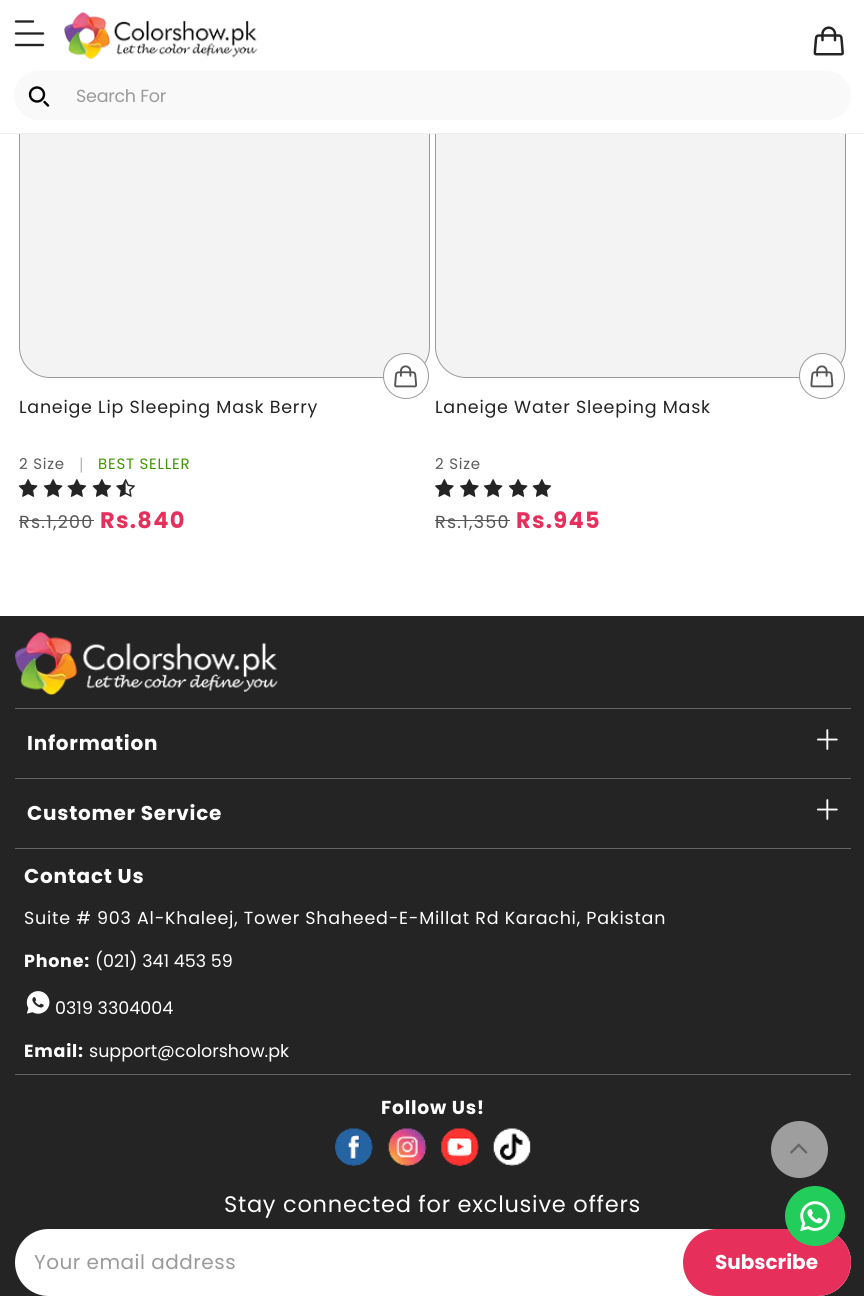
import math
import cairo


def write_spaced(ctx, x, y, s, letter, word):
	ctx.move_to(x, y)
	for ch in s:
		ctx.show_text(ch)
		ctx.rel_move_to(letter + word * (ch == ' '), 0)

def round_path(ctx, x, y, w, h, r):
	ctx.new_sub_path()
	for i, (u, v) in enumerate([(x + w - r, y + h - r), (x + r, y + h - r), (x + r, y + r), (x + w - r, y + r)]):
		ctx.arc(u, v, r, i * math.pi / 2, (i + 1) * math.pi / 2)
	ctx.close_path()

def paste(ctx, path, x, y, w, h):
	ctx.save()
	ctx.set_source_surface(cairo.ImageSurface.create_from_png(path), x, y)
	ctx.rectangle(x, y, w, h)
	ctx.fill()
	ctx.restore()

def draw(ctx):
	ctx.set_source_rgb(1, 1, 1)
	ctx.paint()
	ctx.set_source_rgb(0.953, 0.953, 0.953)
	round_path(ctx, 19.5, -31.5, 410, 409, 30.5)
	ctx.fill_preserve()
	ctx.set_source_rgb(0.604, 0.604, 0.604)
	ctx.set_line_width(1)
	ctx.stroke()
	ctx.set_source_rgb(0.953, 0.953, 0.953)
	round_path(ctx, 435.5, -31.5, 410, 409, 30.5)
	ctx.fill_preserve()
	ctx.set_source_rgb(0.604, 0.604, 0.604)
	ctx.stroke()
	ctx.set_source_rgb(1, 1, 1)
	ctx.rectangle(19, 0, 827, 133)
	ctx.fill()
	ctx.set_source_rgb(0.929, 0.929, 0.929)
	ctx.rectangle(0, 133, 864, 1)
	ctx.fill()
	ctx.new_path()
	ctx.move_to(16, 21.5)
	ctx.line_to(33, 21.5)
	ctx.move_to(16, 33.5)
	ctx.line_to(43, 33.5)
	ctx.move_to(16, 45)
	ctx.line_to(43, 45)
	ctx.set_source_rgb(0.141, 0.141, 0.141)
	ctx.set_line_width(2.4)
	ctx.set_line_cap(cairo.LINE_CAP_ROUND)
	ctx.stroke()
	paste(ctx, 'media/1.png', 64, 12, 194, 47)
	paste(ctx, 'media/2.png', 813, 26, 31, 30)
	ctx.set_source_rgb(0.976, 0.976, 0.976)
	round_path(ctx, 14, 71, 837, 49, 24.5)
	ctx.fill()
	ctx.arc(37, 94.5, 7, 0, 2 * math.pi)
	ctx.set_source_rgb(0, 0, 0)
	ctx.set_line_cap(cairo.LINE_CAP_BUTT)
	ctx.stroke()
	ctx.new_path()
	ctx.move_to(48, 105.5)
	ctx.line_to(44.5, 102)
	ctx.set_line_cap(cairo.LINE_CAP_ROUND)
	ctx.stroke()
	ctx.select_font_face('Poppins')
	ctx.set_font_size(17.5)
	ctx.set_source_rgb(0.604, 0.604, 0.604)
	write_spaced(ctx, 76, 102, 'Search For', -0.25, 0)
	ctx.set_source_rgb(1, 1, 1)
	ctx.new_path()
	ctx.arc(406, 376, 22.5, 0, 2 * math.pi)
	ctx.fill_preserve()
	ctx.set_source_rgb(0.604, 0.604, 0.604)
	ctx.set_line_width(1)
	ctx.set_line_cap(cairo.LINE_CAP_BUTT)
	ctx.stroke()
	paste(ctx, 'media/3.png', 394, 365, 23, 23)
	ctx.set_source_rgb(0.141, 0.141, 0.141)
	write_spaced(ctx, 19, 413, 'Laneige Lip Sleeping Mask Berry', 0.75, 0)
	ctx.set_font_size(15)
	ctx.set_source_rgb(0.357, 0.357, 0.357)
	write_spaced(ctx, 19, 469, '2 Size', 0.75, 0)
	ctx.select_font_face('DejaVu Sans')
	ctx.set_source_rgb(0.702, 0.702, 0.702)
	write_spaced(ctx, 75, 469, '❘', 0.75, 0)
	ctx.select_font_face('Poppins')
	ctx.set_source_rgb(0.239, 0.596, 0)
	write_spaced(ctx, 98, 469, 'BEST SELLER', 0.75, 0)
	paste(ctx, 'media/4.png', 18, 479, 20, 18)
	paste(ctx, 'media/4.png', 43, 479, 20, 18)
	paste(ctx, 'media/5.png', 67, 479, 20, 18)
	paste(ctx, 'media/5.png', 92, 479, 20, 18)
	paste(ctx, 'media/6.png', 116, 479, 19, 18)
	ctx.set_font_size(17.5)
	ctx.set_source_rgb(0.333, 0.333, 0.333)
	write_spaced(ctx, 19, 528, 'Rs.1,200', 1.25, 0)
	ctx.rectangle(19, 520, 75, 1)
	ctx.fill()
	ctx.select_font_face('Poppins', cairo.FONT_SLANT_NORMAL, cairo.FONT_WEIGHT_BOLD)
	ctx.set_font_size(22.5)
	ctx.set_source_rgb(0.906, 0.184, 0.357)
	write_spaced(ctx, 100, 528, 'Rs.840', 1.25, 0)
	ctx.set_source_rgb(1, 1, 1)
	ctx.new_path()
	ctx.arc(822, 376, 22.5, 0, 2 * math.pi)
	ctx.fill_preserve()
	ctx.set_source_rgb(0.604, 0.604, 0.604)
	ctx.stroke()
	paste(ctx, 'media/7.png', 810, 365, 24, 23)
	ctx.select_font_face('Poppins')
	ctx.set_font_size(17.5)
	ctx.set_source_rgb(0.141, 0.141, 0.141)
	write_spaced(ctx, 435, 413, 'Laneige Water Sleeping Mask', 0.75, 0)
	ctx.set_font_size(15)
	ctx.set_source_rgb(0.357, 0.357, 0.357)
	write_spaced(ctx, 435, 469, '2 Size', 0.75, 0)
	paste(ctx, 'media/8.png', 435, 479, 19, 18)
	paste(ctx, 'media/8.png', 460, 479, 19, 18)
	paste(ctx, 'media/4.png', 483, 479, 20, 18)
	paste(ctx, 'media/4.png', 508, 479, 20, 18)
	paste(ctx, 'media/5.png', 532, 479, 20, 18)
	ctx.set_font_size(17.5)
	ctx.set_source_rgb(0.333, 0.333, 0.333)
	write_spaced(ctx, 435, 528, 'Rs.1,350', 1.25, 0)
	ctx.rectangle(435, 520, 75, 1)
	ctx.fill()
	ctx.select_font_face('Poppins', cairo.FONT_SLANT_NORMAL, cairo.FONT_WEIGHT_BOLD)
	ctx.set_font_size(22.5)
	ctx.set_source_rgb(0.906, 0.184, 0.357)
	write_spaced(ctx, 516, 528, 'Rs.945', 1.25, 0)
	ctx.set_source_rgb(0.141, 0.141, 0.141)
	ctx.rectangle(0, 616, 864, 680)
	ctx.fill()
	paste(ctx, 'media/9.png', 15, 632, 263, 63)
	ctx.set_source_rgb(0.4, 0.4, 0.4)
	ctx.rectangle(15, 708, 836, 1)
	ctx.fill()
	ctx.set_font_size(20)
	ctx.set_source_rgb(1, 1, 1)
	write_spaced(ctx, 27, 750, 'Information', 0.75, 0)
	paste(ctx, 'media/10.png', 817, 729, 21, 21)
	ctx.set_source_rgb(0.4, 0.4, 0.4)
	ctx.rectangle(15, 778, 836, 1)
	ctx.fill()
	ctx.set_source_rgb(1, 1, 1)
	write_spaced(ctx, 27, 820, 'Customer Service', 0.75, 0)
	paste(ctx, 'media/10.png', 817, 799, 21, 21)
	ctx.set_source_rgb(0.4, 0.4, 0.4)
	ctx.rectangle(15, 848, 836, 1)
	ctx.fill()
	ctx.rectangle(15, 1074, 836, 1)
	ctx.fill()
	ctx.set_source_rgb(1, 1, 1)
	write_spaced(ctx, 24, 883, 'Contact Us', 0.75, 0)
	ctx.select_font_face('Poppins')
	ctx.set_font_size(17.5)
	write_spaced(ctx, 24, 924, 'Suite # 903 Al-Khaleej, Tower Shaheed-E-Millat Rd Karachi, Pakistan', 0.75, 0)
	ctx.select_font_face('Poppins', cairo.FONT_SLANT_NORMAL, cairo.FONT_WEIGHT_BOLD)
	write_spaced(ctx, 24, 967, 'Phone:', 0.75, 0)
	ctx.select_font_face('Poppins')
	ctx.move_to(95, 967)
	ctx.show_text('(021) 341 453 59')
	paste(ctx, 'media/11.png', 26, 991, 24, 23)
	ctx.move_to(55, 1014)
	ctx.show_text('0319 3304004')
	ctx.select_font_face('Poppins', cairo.FONT_SLANT_NORMAL, cairo.FONT_WEIGHT_BOLD)
	write_spaced(ctx, 24, 1057, 'Email:', 0.75, 0)
	ctx.select_font_face('Poppins')
	ctx.move_to(89, 1057)
	ctx.show_text('support@colorshow.pk')
	ctx.select_font_face('Poppins', cairo.FONT_SLANT_NORMAL, cairo.FONT_WEIGHT_BOLD)
	ctx.set_font_size(18.75)
	write_spaced(ctx, 381, 1114, 'Follow Us!', 0.75, 0)
	paste(ctx, 'media/12.png', 335, 1128, 38, 38)
	paste(ctx, 'media/13.png', 388, 1128, 39, 38)
	paste(ctx, 'media/14.png', 441, 1128, 38, 38)
	paste(ctx, 'media/15.png', 493, 1128, 38, 38)
	ctx.select_font_face('Poppins')
	ctx.set_font_size(22.5)
	write_spaced(ctx, 224, 1212, 'Stay connected for exclusive offers', 0.75, 0)
	round_path(ctx, 15, 1229, 836, 67, 33.5)
	ctx.fill()
	ctx.set_font_size(20)
	ctx.set_source_rgb(0.604, 0.604, 0.604)
	write_spaced(ctx, 34, 1269, 'Your email address', 0.5, 0)
	ctx.set_source_rgb(0.906, 0.184, 0.357)
	round_path(ctx, 683, 1229, 168, 67, 33.5)
	ctx.fill()
	ctx.select_font_face('Poppins', cairo.FONT_SLANT_NORMAL, cairo.FONT_WEIGHT_BOLD)
	ctx.set_source_rgb(1, 1, 1)
	ctx.move_to(715, 1269)
	ctx.show_text('Subscribe')
	ctx.set_source_rgb(0.62, 0.62, 0.62)
	ctx.new_path()
	ctx.arc(799.5, 1149.5, 28.5, 0, 2 * math.pi)
	ctx.fill()
	paste(ctx, 'media/16.png', 790, 1143, 18, 11)
	ctx.set_source_rgb(0.133, 0.804, 0.357)
	ctx.arc(815, 1216, 30, 0, 2 * math.pi)
	ctx.fill()
	paste(ctx, 'media/17.png', 800, 1201, 30, 30)


surface = cairo.ImageSurface(cairo.FORMAT_RGB24, 864, 1296)
ctx = cairo.Context(surface)
options = cairo.FontOptions()
options.set_hint_metrics(cairo.HINT_METRICS_OFF)
options.set_hint_style(cairo.HINT_STYLE_NONE)
ctx.set_font_options(options)
ctx.set_miter_limit(4)
draw(ctx)
surface.write_to_png('image.png')
